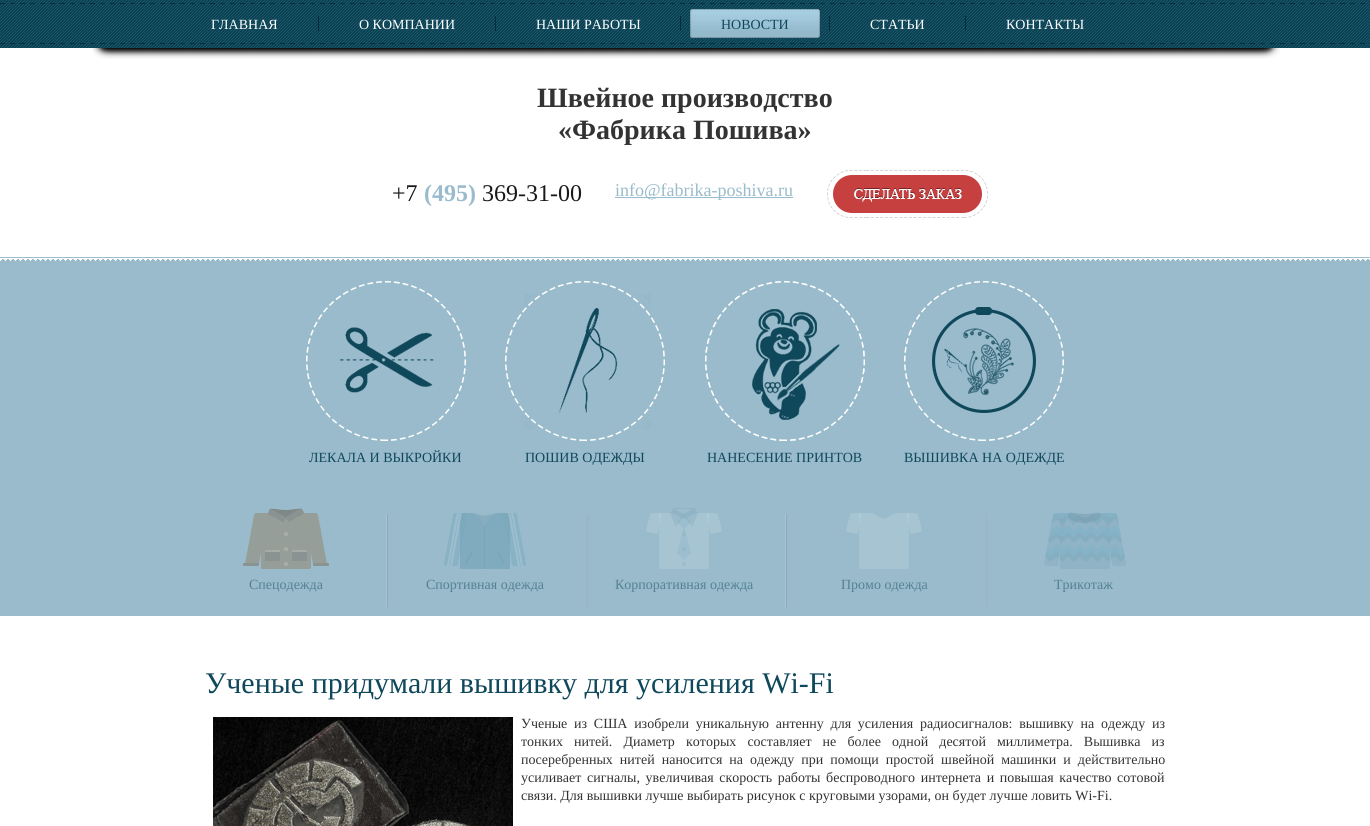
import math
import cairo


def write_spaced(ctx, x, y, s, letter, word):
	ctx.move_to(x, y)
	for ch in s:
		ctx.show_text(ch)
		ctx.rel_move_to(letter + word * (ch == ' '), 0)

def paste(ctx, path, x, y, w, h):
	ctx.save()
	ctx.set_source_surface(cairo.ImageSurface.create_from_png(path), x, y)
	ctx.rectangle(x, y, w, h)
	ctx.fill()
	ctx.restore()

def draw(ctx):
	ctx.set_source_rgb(1, 1, 1)
	ctx.paint()
	paste(ctx, 'media/1.png', 0, 0, 1370, 48)
	ctx.select_font_face('Liberation Serif')
	ctx.set_font_size(14)
	ctx.set_source_rgb(1, 1, 1)
	ctx.move_to(211, 29)
	ctx.show_text('ГЛАВНАЯ')
	ctx.set_source_rgb(0.016, 0.176, 0.231)
	ctx.rectangle(318, 16, 1, 15)
	ctx.fill()
	ctx.set_source_rgb(1, 1, 1)
	ctx.move_to(359, 29)
	ctx.show_text('О КОМПАНИИ')
	ctx.set_source_rgb(0.016, 0.176, 0.231)
	ctx.rectangle(495, 16, 1, 15)
	ctx.fill()
	ctx.set_source_rgb(1, 1, 1)
	ctx.move_to(536, 29)
	ctx.show_text('НАШИ РАБОТЫ')
	ctx.set_source_rgb(0.016, 0.176, 0.231)
	ctx.rectangle(680, 16, 1, 15)
	ctx.fill()
	paste(ctx, 'media/2.png', 690, 9, 128, 29)
	paste(ctx, 'media/3.png', 818, 9, 2, 29)
	ctx.set_source_rgb(0.063, 0.282, 0.357)
	ctx.move_to(721, 29)
	ctx.show_text('НОВОСТИ')
	ctx.set_source_rgb(0.016, 0.176, 0.231)
	ctx.rectangle(829, 16, 1, 15)
	ctx.fill()
	ctx.set_source_rgb(1, 1, 1)
	ctx.move_to(870, 29)
	ctx.show_text('СТАТЬИ')
	ctx.set_source_rgb(0.016, 0.176, 0.231)
	ctx.rectangle(965, 16, 1, 15)
	ctx.fill()
	ctx.set_source_rgb(1, 1, 1)
	ctx.move_to(1006, 29)
	ctx.show_text('КОНТАКТЫ')
	paste(ctx, 'media/4.png', 92, 48, 1188, 11)
	ctx.select_font_face('Liberation Serif', cairo.FONT_SLANT_NORMAL, cairo.FONT_WEIGHT_BOLD)
	ctx.set_font_size(28)
	ctx.set_source_rgb(0.2, 0.2, 0.2)
	ctx.move_to(537, 107)
	ctx.show_text('Швейное производство')
	ctx.move_to(558, 139)
	ctx.show_text('«Фабрика Пошива»')
	ctx.select_font_face('Liberation Serif')
	ctx.set_font_size(24)
	ctx.set_source_rgb(0.098, 0.098, 0.098)
	ctx.move_to(392, 201)
	ctx.show_text('+7')
	ctx.select_font_face('Liberation Serif', cairo.FONT_SLANT_NORMAL, cairo.FONT_WEIGHT_BOLD)
	ctx.set_source_rgb(0.6, 0.733, 0.8)
	ctx.move_to(424, 201)
	ctx.show_text('(495)')
	ctx.select_font_face('Liberation Serif')
	ctx.set_source_rgb(0.098, 0.098, 0.098)
	ctx.move_to(482, 201)
	ctx.show_text('369-31-00')
	ctx.set_source_rgb(0.6, 0.733, 0.8)
	ctx.rectangle(615, 197, 178, 1)
	ctx.fill()
	ctx.set_font_size(18)
	ctx.move_to(615, 196)
	ctx.show_text('info@fabrika-poshiva.ru')
	paste(ctx, 'media/5.png', 827, 170, 161, 48)
	ctx.rectangle(0, 257, 1370, 359)
	ctx.fill()
	paste(ctx, 'media/6.png', 0, 258, 1370, 3)
	paste(ctx, 'media/7.png', 306, 281, 160, 160)
	ctx.set_font_size(14)
	ctx.set_source_rgb(0.063, 0.282, 0.357)
	ctx.move_to(309, 462)
	ctx.show_text('ЛЕКАЛА И ВЫКРОЙКИ')
	paste(ctx, 'media/8.png', 505, 281, 160, 160)
	ctx.move_to(525, 462)
	ctx.show_text('ПОШИВ ОДЕЖДЫ')
	paste(ctx, 'media/9.png', 705, 281, 160, 160)
	ctx.move_to(707, 462)
	ctx.show_text('НАНЕСЕНИЕ ПРИНТОВ')
	paste(ctx, 'media/10.png', 904, 281, 160, 160)
	ctx.move_to(904, 462)
	ctx.show_text('ВЫШИВКА НА ОДЕЖДЕ')
	paste(ctx, 'media/11.png', 243, 508, 86, 61)
	ctx.set_source_rgb(0.329, 0.51, 0.576)
	ctx.move_to(249, 589)
	ctx.show_text('Спецодежда')
	paste(ctx, 'media/12.png', 386, 514, 2, 93)
	paste(ctx, 'media/13.png', 444, 513, 82, 56)
	ctx.move_to(426, 589)
	ctx.show_text('Спортивная одежда')
	ctx.set_source_rgb(0.6, 0.718, 0.776)
	ctx.rectangle(586, 514, 3, 93)
	ctx.fill()
	paste(ctx, 'media/14.png', 646, 508, 76, 61)
	ctx.set_source_rgb(0.329, 0.51, 0.576)
	ctx.move_to(615, 589)
	ctx.show_text('Корпоративная одежда')
	paste(ctx, 'media/12.png', 785, 514, 2, 93)
	paste(ctx, 'media/15.png', 846, 513, 76, 56)
	ctx.move_to(841, 589)
	ctx.show_text('Промо одежда')
	ctx.set_source_rgb(0.604, 0.722, 0.78)
	ctx.rectangle(985, 514, 3, 93)
	ctx.fill()
	paste(ctx, 'media/16.png', 1044, 512, 82, 57)
	ctx.set_source_rgb(0.329, 0.51, 0.576)
	ctx.move_to(1054, 589)
	ctx.show_text('Трикотаж')
	ctx.set_font_size(30)
	ctx.set_source_rgb(0.063, 0.282, 0.357)
	ctx.move_to(205, 693)
	ctx.show_text('Ученые придумали вышивку для усиления Wi-Fi')
	paste(ctx, 'media/17.png', 213, 717, 300, 109)
	ctx.set_font_size(14)
	ctx.set_source_rgb(0.2, 0.2, 0.2)
	write_spaced(ctx, 521, 728, 'Ученые из США изобрели уникальную антенну для усиления радиосигналов: вышивку на одежду из', 0, 3.25)
	write_spaced(ctx, 521, 746, 'тонких нитей. Диаметр которых составляет не более одной десятой миллиметра. Вышивка из', 0, 7.6)
	write_spaced(ctx, 521, 764, 'посеребренных нитей наносится на одежду при помощи простой швейной машинки и действительно', 0, 3.5)
	write_spaced(ctx, 521, 782, 'усиливает сигналы, увеличивая скорость работы беспроводного интернета и повышая качество сотовой', 0, 2.1)
	ctx.move_to(521, 800)
	ctx.show_text('связи. Для вышивки лучше выбирать рисунок с круговыми узорами, он будет лучше ловить Wi-Fi.')


surface = cairo.ImageSurface(cairo.FORMAT_RGB24, 1370, 826)
ctx = cairo.Context(surface)
options = cairo.FontOptions()
options.set_hint_metrics(cairo.HINT_METRICS_OFF)
options.set_hint_style(cairo.HINT_STYLE_NONE)
ctx.set_font_options(options)
ctx.set_miter_limit(4)
draw(ctx)
surface.write_to_png('image.png')
